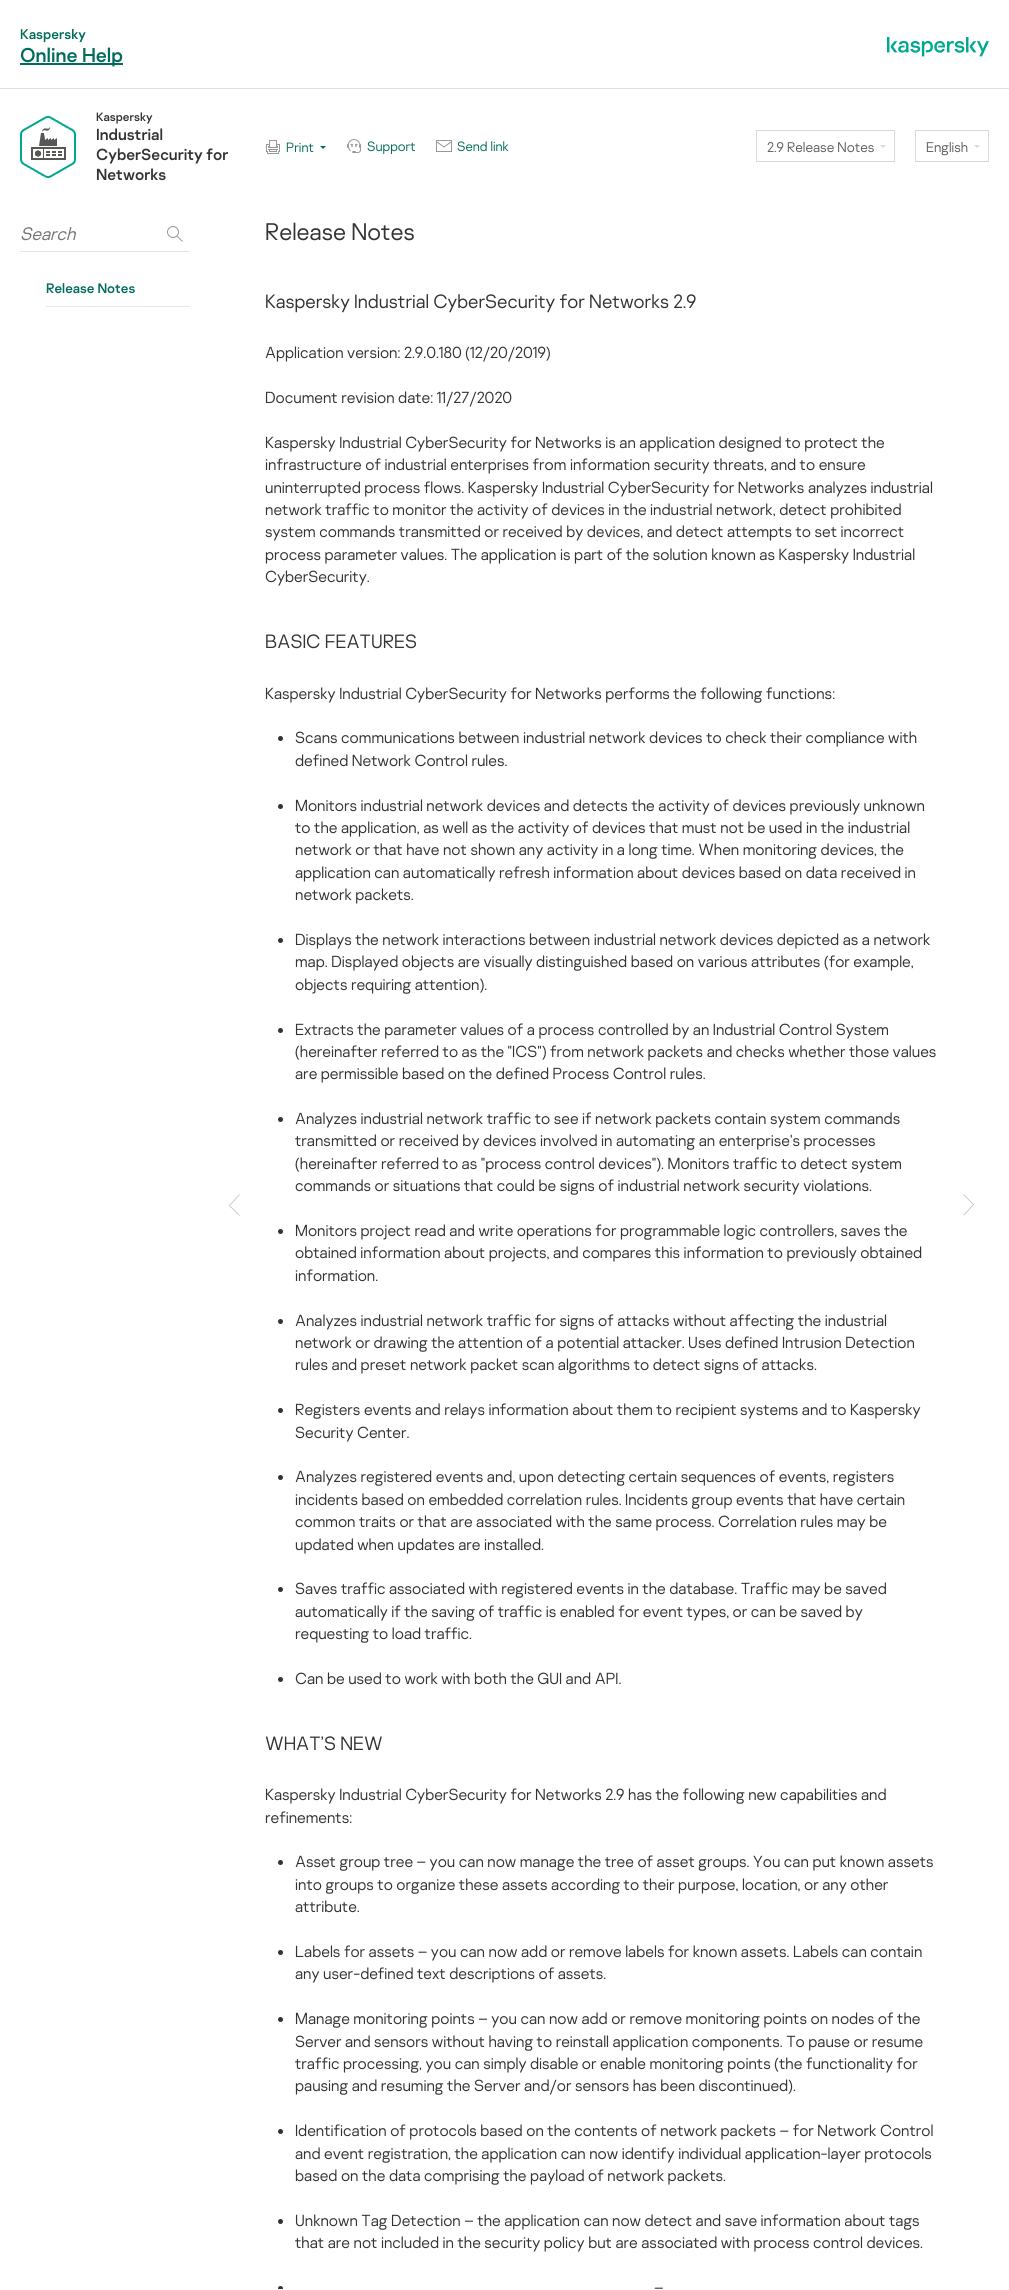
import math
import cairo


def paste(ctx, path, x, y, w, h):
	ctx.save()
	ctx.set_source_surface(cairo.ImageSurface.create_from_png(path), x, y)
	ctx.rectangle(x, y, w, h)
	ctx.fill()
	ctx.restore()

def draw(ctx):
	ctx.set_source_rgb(1, 1, 1)
	ctx.paint()
	ctx.set_source_rgb(0.878, 0.878, 0.878)
	ctx.rectangle(0, 88, 1009, 1)
	ctx.fill()
	ctx.select_font_face('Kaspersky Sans')
	ctx.set_font_size(14)
	ctx.set_source_rgb(0, 0.427, 0.361)
	ctx.move_to(20, 39)
	ctx.show_text('Kaspersky')
	ctx.rectangle(20, 63, 103, 2)
	ctx.fill()
	ctx.set_font_size(20)
	ctx.move_to(20, 62)
	ctx.show_text('Online Help')
	paste(ctx, 'media/1.png', 887, 37, 102, 20)
	paste(ctx, 'media/2.png', 20, 116, 56, 62)
	ctx.set_font_size(12)
	ctx.set_source_rgb(0.2, 0.2, 0.2)
	ctx.move_to(96, 121)
	ctx.show_text('Kaspersky')
	ctx.set_font_size(16)
	for x, y, s in [
		(96, 140, 'Industrial'),
		(96, 160, 'CyberSecurity for'),
		(96, 180, 'Networks'),
	]:
		ctx.move_to(x, y)
		ctx.show_text(s)
	paste(ctx, 'media/3.png', 266, 140, 14, 14)
	ctx.select_font_face('Kaspersky Sans Light')
	ctx.set_font_size(13.5)
	ctx.set_source_rgb(0, 0.427, 0.361)
	ctx.move_to(286, 152)
	ctx.show_text('Print')
	ctx.new_path()
	ctx.move_to(320, 146)
	ctx.line_to(326, 146)
	ctx.line_to(323, 149)
	ctx.close_path()
	ctx.fill()
	paste(ctx, 'media/4.png', 347, 139, 14, 14)
	ctx.move_to(367, 151)
	ctx.show_text('Support')
	paste(ctx, 'media/5.png', 436, 140, 16, 12)
	ctx.move_to(457, 151)
	ctx.show_text('Send link')
	ctx.rectangle(756.5, 130.5, 138, 31)
	ctx.set_source_rgb(0.847, 0.847, 0.847)
	ctx.set_line_width(1)
	ctx.stroke()
	ctx.set_font_size(14)
	ctx.set_source_rgb(0.361, 0.373, 0.38)
	ctx.move_to(767, 152)
	ctx.show_text('2.9 Release Notes')
	paste(ctx, 'media/6.png', 880, 145, 6, 3)
	ctx.rectangle(915.5, 130.5, 73, 31)
	ctx.set_source_rgb(0.847, 0.847, 0.847)
	ctx.stroke()
	ctx.set_source_rgb(0.361, 0.373, 0.38)
	ctx.move_to(926, 152)
	ctx.show_text('English')
	paste(ctx, 'media/6.png', 974, 145, 6, 3)
	ctx.set_source_rgb(0.898, 0.898, 0.898)
	ctx.rectangle(20, 251, 170, 1)
	ctx.fill()
	ctx.select_font_face('Kaspersky Sans Light', cairo.FONT_SLANT_ITALIC)
	ctx.set_font_size(18)
	ctx.set_source_rgb(0.459, 0.459, 0.459)
	ctx.move_to(20, 240)
	ctx.show_text('Search')
	paste(ctx, 'media/7.png', 167, 226, 16, 16)
	ctx.set_source_rgb(0.898, 0.898, 0.898)
	ctx.rectangle(46, 306, 144, 1)
	ctx.fill()
	ctx.select_font_face('Kaspersky Sans')
	ctx.set_font_size(13.75)
	ctx.set_source_rgb(0, 0.427, 0.361)
	ctx.move_to(46, 293)
	ctx.show_text('Release Notes')
	ctx.select_font_face('Kaspersky Sans Light')
	ctx.set_font_size(24)
	ctx.set_source_rgb(0.2, 0.2, 0.2)
	ctx.move_to(265, 240)
	ctx.show_text('Release Notes')
	ctx.set_font_size(19.2)
	ctx.move_to(265, 308)
	ctx.show_text('Kaspersky Industrial CyberSecurity for Networks 2.9')
	ctx.set_font_size(16)
	for x, y, s in [
		(265, 358, 'Application version: 2.9.0.180 (12/20/2019)'),
		(265, 403, 'Document revision date: 11/27/2020'),
		(265, 448, 'Kaspersky Industrial CyberSecurity for Networks is an application designed to protect the'),
		(265, 470, 'infrastructure of industrial enterprises from information security threats, and to ensure'),
		(265, 493, 'uninterrupted process flows. Kaspersky Industrial CyberSecurity for Networks analyzes industrial'),
		(265, 515, 'network traffic to monitor the activity of devices in the industrial network, detect prohibited'),
		(265, 537, 'system commands transmitted or received by devices, and detect attempts to set incorrect'),
		(265, 560, 'process parameter values. The application is part of the solution known as Kaspersky Industrial'),
		(265, 582, 'CyberSecurity.'),
	]:
		ctx.move_to(x, y)
		ctx.show_text(s)
	ctx.set_font_size(19.2)
	ctx.move_to(265, 648)
	ctx.show_text('BASIC FEATURES')
	ctx.set_font_size(16)
	ctx.move_to(265, 699)
	ctx.show_text('Kaspersky Industrial CyberSecurity for Networks performs the following functions:')
	ctx.new_path()
	ctx.arc(280.5, 738.5, 2.5, 0, 2 * math.pi)
	ctx.fill()
	ctx.move_to(295, 743)
	ctx.show_text('Scans communications between industrial network devices to check their compliance with')
	ctx.move_to(295, 766)
	ctx.show_text('defined Network Control rules.')
	ctx.new_path()
	ctx.arc(280.5, 806.5, 2.5, 0, 2 * math.pi)
	ctx.fill()
	for x, y, s in [
		(295, 811, 'Monitors industrial network devices and detects the activity of devices previously unknown'),
		(295, 833, 'to the application, as well as the activity of devices that must not be used in the industrial'),
		(295, 855, 'network or that have not shown any activity in a long time. When monitoring devices, the'),
		(295, 878, 'application can automatically refresh information about devices based on data received in'),
		(295, 900, 'network packets.'),
	]:
		ctx.move_to(x, y)
		ctx.show_text(s)
	ctx.new_path()
	ctx.arc(280.5, 940.5, 2.5, 0, 2 * math.pi)
	ctx.fill()
	for x, y, s in [
		(295, 945, 'Displays the network interactions between industrial network devices depicted as a network'),
		(295, 967, 'map. Displayed objects are visually distinguished based on various attributes (for example,'),
		(295, 990, 'objects requiring attention).'),
	]:
		ctx.move_to(x, y)
		ctx.show_text(s)
	ctx.new_path()
	ctx.arc(280.5, 1030.5, 2.5, 0, 2 * math.pi)
	ctx.fill()
	for x, y, s in [
		(295, 1035, 'Extracts the parameter values of a process controlled by an Industrial Control System'),
		(295, 1057, '(hereinafter referred to as the "ICS") from network packets and checks whether those values'),
		(295, 1079, 'are permissible based on the defined Process Control rules.'),
	]:
		ctx.move_to(x, y)
		ctx.show_text(s)
	ctx.new_path()
	ctx.arc(280.5, 1119.5, 2.5, 0, 2 * math.pi)
	ctx.fill()
	for x, y, s in [
		(295, 1124, 'Analyzes industrial network traffic to see if network packets contain system commands'),
		(295, 1146, 'transmitted or received by devices involved in automating an enterprise\'s processes'),
		(295, 1169, '(hereinafter referred to as "process control devices"). Monitors traffic to detect system'),
		(295, 1191, 'commands or situations that could be signs of industrial network security violations.'),
	]:
		ctx.move_to(x, y)
		ctx.show_text(s)
	ctx.new_path()
	ctx.arc(280.5, 1231.5, 2.5, 0, 2 * math.pi)
	ctx.fill()
	for x, y, s in [
		(295, 1236, 'Monitors project read and write operations for programmable logic controllers, saves the'),
		(295, 1258, 'obtained information about projects, and compares this information to previously obtained'),
		(295, 1281, 'information.'),
	]:
		ctx.move_to(x, y)
		ctx.show_text(s)
	ctx.new_path()
	ctx.arc(280.5, 1321.5, 2.5, 0, 2 * math.pi)
	ctx.fill()
	for x, y, s in [
		(295, 1326, 'Analyzes industrial network traffic for signs of attacks without affecting the industrial'),
		(295, 1348, 'network or drawing the attention of a potential attacker. Uses defined Intrusion Detection'),
		(295, 1370, 'rules and preset network packet scan algorithms to detect signs of attacks.'),
	]:
		ctx.move_to(x, y)
		ctx.show_text(s)
	ctx.new_path()
	ctx.arc(280.5, 1410.5, 2.5, 0, 2 * math.pi)
	ctx.fill()
	ctx.move_to(295, 1415)
	ctx.show_text('Registers events and relays information about them to recipient systems and to Kaspersky')
	ctx.move_to(295, 1438)
	ctx.show_text('Security Center.')
	ctx.new_path()
	ctx.arc(280.5, 1477.5, 2.5, 0, 2 * math.pi)
	ctx.fill()
	for x, y, s in [
		(295, 1482, 'Analyzes registered events and, upon detecting certain sequences of events, registers'),
		(295, 1505, 'incidents based on embedded correlation rules. Incidents group events that have certain'),
		(295, 1527, 'common traits or that are associated with the same process. Correlation rules may be'),
		(295, 1550, 'updated when updates are installed.'),
	]:
		ctx.move_to(x, y)
		ctx.show_text(s)
	ctx.new_path()
	ctx.arc(280.5, 1589.5, 2.5, 0, 2 * math.pi)
	ctx.fill()
	for x, y, s in [
		(295, 1594, 'Saves traffic associated with registered events in the database. Traffic may be saved'),
		(295, 1617, 'automatically if the saving of traffic is enabled for event types, or can be saved by'),
		(295, 1639, 'requesting to load traffic.'),
	]:
		ctx.move_to(x, y)
		ctx.show_text(s)
	ctx.new_path()
	ctx.arc(280.5, 1679.5, 2.5, 0, 2 * math.pi)
	ctx.fill()
	ctx.move_to(295, 1684)
	ctx.show_text('Can be used to work with both the GUI and API.')
	ctx.set_font_size(19.2)
	ctx.move_to(265, 1750)
	ctx.show_text('WHAT’S NEW')
	ctx.set_font_size(16)
	ctx.move_to(265, 1800)
	ctx.show_text('Kaspersky Industrial CyberSecurity for Networks 2.9 has the following new capabilities and')
	ctx.move_to(265, 1823)
	ctx.show_text('refinements:')
	ctx.new_path()
	ctx.arc(280.5, 1862.5, 2.5, 0, 2 * math.pi)
	ctx.fill()
	for x, y, s in [
		(295, 1867, 'Asset group tree – you can now manage the tree of asset groups. You can put known assets'),
		(295, 1890, 'into groups to organize these assets according to their purpose, location, or any other'),
		(295, 1912, 'attribute.'),
	]:
		ctx.move_to(x, y)
		ctx.show_text(s)
	ctx.new_path()
	ctx.arc(280.5, 1952.5, 2.5, 0, 2 * math.pi)
	ctx.fill()
	ctx.move_to(295, 1957)
	ctx.show_text('Labels for assets – you can now add or remove labels for known assets. Labels can contain')
	ctx.move_to(295, 1979)
	ctx.show_text('any user-defined text descriptions of assets.')
	ctx.new_path()
	ctx.arc(280.5, 2019.5, 2.5, 0, 2 * math.pi)
	ctx.fill()
	for x, y, s in [
		(295, 2024, 'Manage monitoring points – you can now add or remove monitoring points on nodes of the'),
		(295, 2047, 'Server and sensors without having to reinstall application components. To pause or resume'),
		(295, 2069, 'traffic processing, you can simply disable or enable monitoring points (the functionality for'),
		(295, 2091, 'pausing and resuming the Server and/or sensors has been discontinued).'),
	]:
		ctx.move_to(x, y)
		ctx.show_text(s)
	ctx.new_path()
	ctx.arc(280.5, 2131.5, 2.5, 0, 2 * math.pi)
	ctx.fill()
	for x, y, s in [
		(295, 2136, 'Identification of protocols based on the contents of network packets – for Network Control'),
		(295, 2159, 'and event registration, the application can now identify individual application-layer protocols'),
		(295, 2181, 'based on the data comprising the payload of network packets.'),
	]:
		ctx.move_to(x, y)
		ctx.show_text(s)
	ctx.new_path()
	ctx.arc(280.5, 2221.5, 2.5, 0, 2 * math.pi)
	ctx.fill()
	ctx.move_to(295, 2226)
	ctx.show_text('Unknown Tag Detection – the application can now detect and save information about tags')
	ctx.move_to(295, 2248)
	ctx.show_text('that are not included in the security policy but are associated with process control devices.')
	ctx.save()
	ctx.rectangle(0, 214, 1009, 2075)
	ctx.clip()
	ctx.arc(280.5, 2288.5, 2.5, 0, 2 * math.pi)
	ctx.fill()
	ctx.restore()
	ctx.move_to(654, 2293)
	ctx.show_text('–')
	paste(ctx, 'media/8.png', 229, 1194, 11, 22)
	paste(ctx, 'media/9.png', 963, 1194, 11, 22)


surface = cairo.ImageSurface(cairo.FORMAT_RGB24, 1009, 2290)
ctx = cairo.Context(surface)
options = cairo.FontOptions()
options.set_hint_metrics(cairo.HINT_METRICS_OFF)
options.set_hint_style(cairo.HINT_STYLE_NONE)
ctx.set_font_options(options)
ctx.set_miter_limit(4)
draw(ctx)
surface.write_to_png('image.png')
